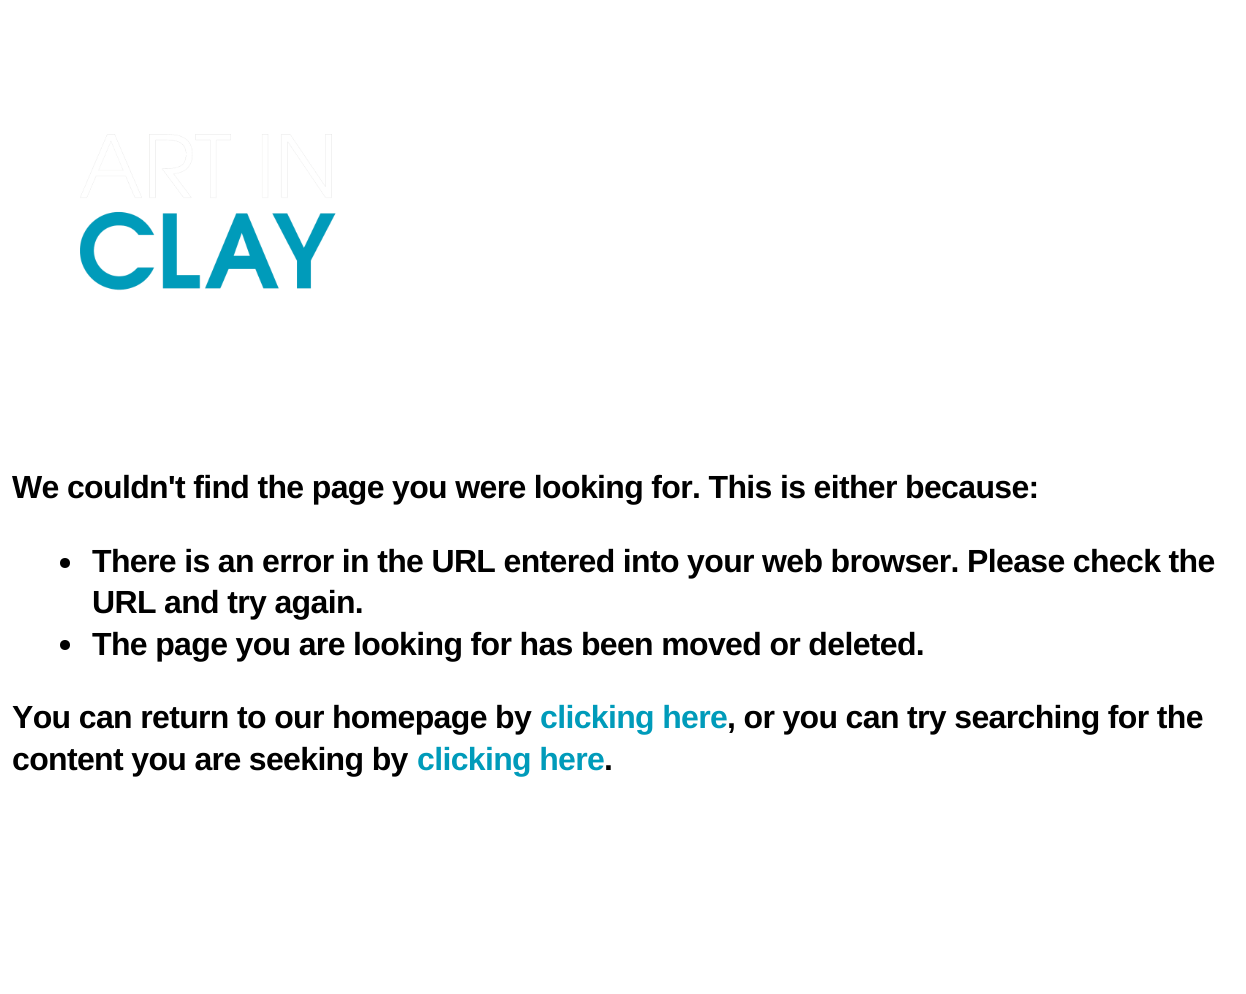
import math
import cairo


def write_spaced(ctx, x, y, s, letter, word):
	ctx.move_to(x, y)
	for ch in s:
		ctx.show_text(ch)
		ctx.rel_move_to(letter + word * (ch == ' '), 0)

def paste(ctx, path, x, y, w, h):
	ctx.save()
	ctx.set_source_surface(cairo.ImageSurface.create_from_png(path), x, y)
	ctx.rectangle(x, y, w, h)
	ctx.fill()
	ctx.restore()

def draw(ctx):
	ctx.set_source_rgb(1, 1, 1)
	ctx.paint()
	paste(ctx, 'media/1.png', 80, 134, 256, 157)
	ctx.select_font_face('Liberation Sans', cairo.FONT_SLANT_NORMAL, cairo.FONT_WEIGHT_BOLD)
	ctx.set_font_size(32)
	ctx.set_source_rgb(0, 0, 0)
	write_spaced(ctx, 12, 498, 'We couldn\'t find the page you were looking for. This is either because:', -0.65, 0)
	ctx.new_path()
	ctx.arc(65, 563, 5, 0, 2 * math.pi)
	ctx.fill()
	write_spaced(ctx, 92, 572, 'There is an error in the URL entered into your web browser. Please check the', -0.65, 0)
	write_spaced(ctx, 92, 613, 'URL and try again.', -0.65, 0)
	ctx.new_path()
	ctx.arc(65, 645, 5, 0, 2 * math.pi)
	ctx.fill()
	write_spaced(ctx, 92, 655, 'The page you are looking for has been moved or deleted.', -0.65, 0)
	write_spaced(ctx, 12, 728, 'You can return to our homepage by', -0.65, 0)
	ctx.set_source_rgb(0, 0.608, 0.729)
	write_spaced(ctx, 540, 728, 'clicking here', -0.65, 0)
	ctx.set_source_rgb(0, 0, 0)
	write_spaced(ctx, 727, 728, ', or you can try searching for the', -0.65, 0)
	write_spaced(ctx, 12, 770, 'content you are seeking by', -0.65, 0)
	ctx.set_source_rgb(0, 0.608, 0.729)
	write_spaced(ctx, 417, 770, 'clicking here', -0.65, 0)
	ctx.set_source_rgb(0, 0, 0)
	write_spaced(ctx, 604, 770, '.', -0.65, 0)


surface = cairo.ImageSurface(cairo.FORMAT_RGB24, 1246, 994)
ctx = cairo.Context(surface)
options = cairo.FontOptions()
options.set_hint_metrics(cairo.HINT_METRICS_OFF)
options.set_hint_style(cairo.HINT_STYLE_NONE)
ctx.set_font_options(options)
ctx.set_miter_limit(4)
draw(ctx)
surface.write_to_png('image.png')
